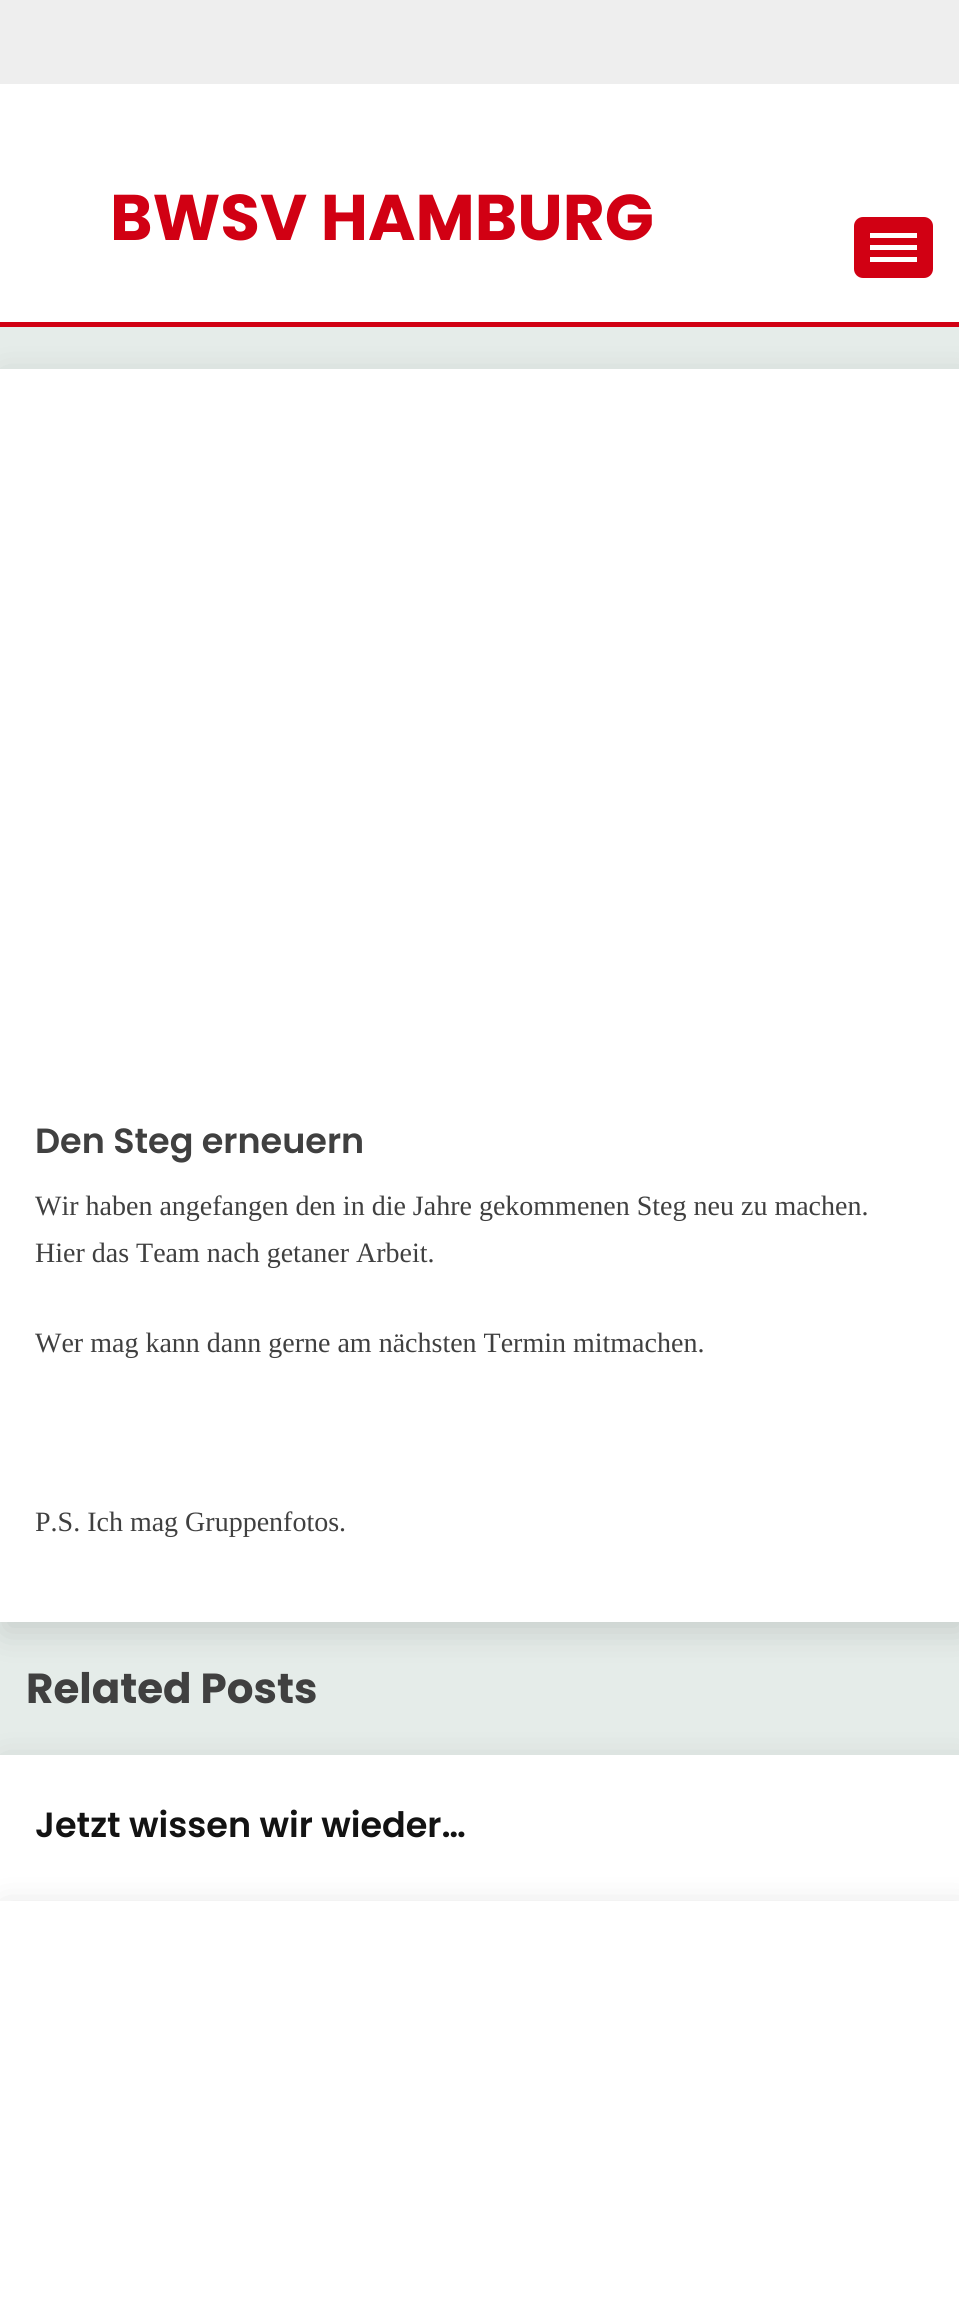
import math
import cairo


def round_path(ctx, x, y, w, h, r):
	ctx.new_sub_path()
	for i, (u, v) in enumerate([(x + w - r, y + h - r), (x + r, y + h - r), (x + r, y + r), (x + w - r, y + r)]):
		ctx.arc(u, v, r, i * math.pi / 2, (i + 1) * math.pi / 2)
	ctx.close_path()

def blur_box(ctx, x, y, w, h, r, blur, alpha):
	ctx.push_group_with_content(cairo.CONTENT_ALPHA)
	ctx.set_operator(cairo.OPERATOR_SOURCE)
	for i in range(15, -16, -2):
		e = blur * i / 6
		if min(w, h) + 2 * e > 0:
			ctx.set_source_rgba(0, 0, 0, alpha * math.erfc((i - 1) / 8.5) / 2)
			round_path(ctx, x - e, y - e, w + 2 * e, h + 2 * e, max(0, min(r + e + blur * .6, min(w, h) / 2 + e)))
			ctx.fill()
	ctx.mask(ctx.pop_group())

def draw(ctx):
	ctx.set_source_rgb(0.898, 0.925, 0.914)
	ctx.paint()
	ctx.set_source_rgb(1, 1, 1)
	ctx.rectangle(0, 84, 959, 238)
	ctx.fill()
	ctx.set_source_rgb(0.933, 0.933, 0.933)
	ctx.rectangle(0, 0, 959, 84)
	ctx.fill()
	ctx.select_font_face('Poppins', cairo.FONT_SLANT_NORMAL, cairo.FONT_WEIGHT_BOLD)
	ctx.set_font_size(64.5)
	ctx.set_source_rgb(0.82, 0, 0.078)
	ctx.move_to(110, 240)
	ctx.show_text('BWSV HAMBURG')
	round_path(ctx, 854, 217, 79, 61, 9)
	ctx.fill()
	ctx.set_source_rgb(1, 1, 1)
	ctx.rectangle(870, 233, 47, 5)
	ctx.rectangle(870, 245, 47, 5)
	ctx.rectangle(870, 257, 47, 5)
	ctx.fill()
	ctx.set_source_rgb(0, 0, 0)
	blur_box(ctx, 4, 378, 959, 1253, 0, 17.5, 0.14)
	ctx.set_source_rgb(0.82, 0, 0.078)
	ctx.rectangle(0, 322, 959, 5)
	ctx.fill()
	ctx.set_source_rgb(1, 1, 1)
	ctx.rectangle(0, 369, 959, 1253)
	ctx.fill()
	ctx.select_font_face('Poppins SemiBold')
	ctx.set_font_size(35)
	ctx.set_source_rgb(0.251, 0.251, 0.251)
	ctx.move_to(35, 1153)
	ctx.show_text('Den Steg erneuern')
	ctx.select_font_face('Liberation Serif')
	ctx.set_font_size(28)
	for x, y, s in [
		(35, 1215, 'Wir haben angefangen den in die Jahre gekommenen Steg neu zu machen.'),
		(35, 1262, 'Hier das Team nach getaner Arbeit.'),
		(35, 1352, 'Wer mag kann dann gerne am nächsten Termin mitmachen.'),
		(35, 1531, 'P.S. Ich mag Gruppenfotos.'),
	]:
		ctx.move_to(x, y)
		ctx.show_text(s)
	ctx.select_font_face('Poppins', cairo.FONT_SLANT_NORMAL, cairo.FONT_WEIGHT_BOLD)
	ctx.set_font_size(42)
	ctx.move_to(26, 1703)
	ctx.show_text('Related Posts')
	ctx.set_source_rgb(0, 0, 0)
	blur_box(ctx, 4, 1764, 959, 145, 0, 17.5, 0.14)
	ctx.set_source_rgb(1, 1, 1)
	ctx.rectangle(0, 1755, 959, 146)
	ctx.fill()
	ctx.select_font_face('Poppins SemiBold')
	ctx.set_font_size(35)
	ctx.set_source_rgb(0.078, 0.078, 0.075)
	ctx.move_to(35, 1837)
	ctx.show_text('Jetzt wissen wir wieder…')
	ctx.set_source_rgb(0, 0, 0)
	blur_box(ctx, 4, 1909, 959, 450, 0, 17.5, 0.14)
	ctx.set_source_rgb(1, 1, 1)
	ctx.rectangle(0, 1901, 959, 405)
	ctx.fill()


surface = cairo.ImageSurface(cairo.FORMAT_RGB24, 959, 2306)
ctx = cairo.Context(surface)
options = cairo.FontOptions()
options.set_hint_metrics(cairo.HINT_METRICS_OFF)
options.set_hint_style(cairo.HINT_STYLE_NONE)
ctx.set_font_options(options)
ctx.set_miter_limit(4)
draw(ctx)
surface.write_to_png('image.png')
